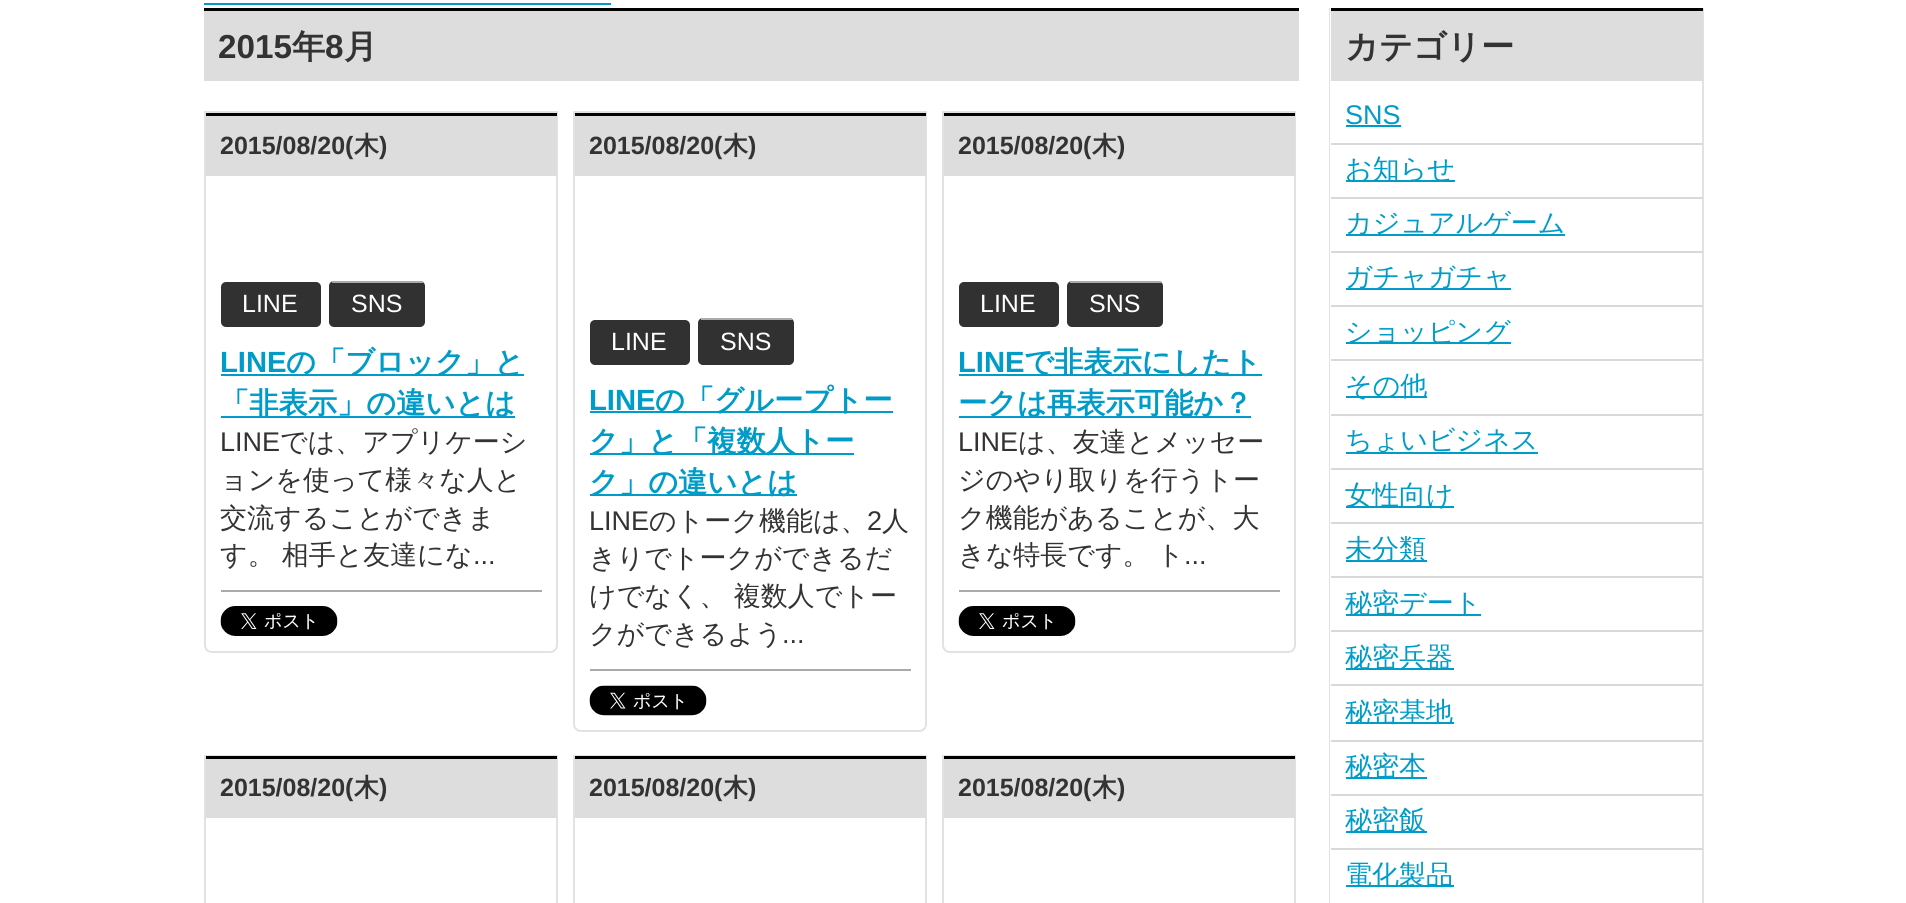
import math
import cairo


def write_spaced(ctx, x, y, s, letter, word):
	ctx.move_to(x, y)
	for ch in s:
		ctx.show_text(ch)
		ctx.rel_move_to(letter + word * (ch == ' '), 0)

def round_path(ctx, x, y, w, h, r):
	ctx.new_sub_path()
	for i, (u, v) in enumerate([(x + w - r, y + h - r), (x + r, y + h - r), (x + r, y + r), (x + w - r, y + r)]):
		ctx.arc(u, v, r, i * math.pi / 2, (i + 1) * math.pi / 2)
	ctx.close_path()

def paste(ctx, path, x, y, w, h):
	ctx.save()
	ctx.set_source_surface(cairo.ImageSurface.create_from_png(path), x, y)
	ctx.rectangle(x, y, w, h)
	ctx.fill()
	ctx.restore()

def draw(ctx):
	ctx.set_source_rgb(1, 1, 1)
	ctx.paint()
	ctx.set_source_rgb(0, 0.612, 0.788)
	ctx.rectangle(204, 3, 407, 2)
	ctx.fill()
	ctx.set_source_rgb(0.867, 0.867, 0.867)
	ctx.rectangle(204, 11, 1095, 70)
	ctx.fill()
	ctx.set_source_rgb(0, 0, 0)
	ctx.rectangle(204, 8, 1095, 3)
	ctx.fill()
	ctx.select_font_face('Liberation Sans', cairo.FONT_SLANT_NORMAL, cairo.FONT_WEIGHT_BOLD)
	ctx.set_font_size(33.25)
	ctx.set_source_rgb(0.2, 0.2, 0.2)
	ctx.move_to(218, 58)
	ctx.show_text('2015')
	ctx.select_font_face('WenQuanYi Zen Hei', cairo.FONT_SLANT_NORMAL, cairo.FONT_WEIGHT_BOLD)
	ctx.move_to(292, 58)
	ctx.show_text('年')
	ctx.select_font_face('Liberation Sans', cairo.FONT_SLANT_NORMAL, cairo.FONT_WEIGHT_BOLD)
	ctx.move_to(325, 58)
	ctx.show_text('8')
	ctx.select_font_face('WenQuanYi Zen Hei', cairo.FONT_SLANT_NORMAL, cairo.FONT_WEIGHT_BOLD)
	ctx.move_to(344, 58)
	ctx.show_text('月')
	ctx.new_path()
	ctx.move_to(205, 112)
	ctx.line_to(557, 112)
	ctx.line_to(557, 645)
	ctx.curve_to(557, 649, 554, 652, 550, 652)
	ctx.line_to(212, 652)
	ctx.curve_to(208, 652, 205, 649, 205, 645)
	ctx.close_path()
	ctx.set_source_rgb(0.886, 0.886, 0.878)
	ctx.stroke()
	ctx.set_source_rgb(0.867, 0.867, 0.867)
	ctx.rectangle(206, 116, 351, 60)
	ctx.fill()
	ctx.set_source_rgb(0, 0, 0)
	ctx.rectangle(206, 113, 351, 3)
	ctx.fill()
	ctx.select_font_face('Liberation Sans', cairo.FONT_SLANT_NORMAL, cairo.FONT_WEIGHT_BOLD)
	ctx.set_font_size(25)
	ctx.set_source_rgb(0.2, 0.2, 0.2)
	ctx.move_to(220, 154)
	ctx.show_text('2015/08/20(')
	ctx.select_font_face('WenQuanYi Zen Hei', cairo.FONT_SLANT_NORMAL, cairo.FONT_WEIGHT_BOLD)
	ctx.move_to(354, 154)
	ctx.show_text('木')
	ctx.select_font_face('Liberation Sans', cairo.FONT_SLANT_NORMAL, cairo.FONT_WEIGHT_BOLD)
	ctx.move_to(379, 154)
	ctx.show_text(')')
	ctx.set_source_rgb(0.192, 0.192, 0.192)
	round_path(ctx, 221, 282, 100, 45, 5)
	ctx.fill()
	ctx.select_font_face('Liberation Sans')
	ctx.set_source_rgb(1, 1, 1)
	ctx.move_to(242, 312)
	ctx.show_text('LINE')
	ctx.set_source_rgb(0.192, 0.192, 0.192)
	round_path(ctx, 329, 281, 96, 46, 5)
	ctx.fill()
	ctx.set_source_rgb(0.667, 0.667, 0.667)
	ctx.rectangle(332, 281, 91, 2)
	ctx.fill()
	ctx.set_source_rgb(1, 1, 1)
	ctx.move_to(351, 312)
	ctx.show_text('SNS')
	ctx.select_font_face('Liberation Sans', cairo.FONT_SLANT_NORMAL, cairo.FONT_WEIGHT_BOLD)
	ctx.set_font_size(29.25)
	ctx.set_source_rgb(0, 0.612, 0.788)
	ctx.move_to(220, 372)
	ctx.show_text('LINE')
	ctx.rectangle(221, 374, 303, 2)
	ctx.fill()
	ctx.select_font_face('WenQuanYi Zen Hei', cairo.FONT_SLANT_NORMAL, cairo.FONT_WEIGHT_BOLD)
	ctx.move_to(286, 372)
	ctx.show_text('の「ブロック」と')
	ctx.rectangle(221, 416, 294, 2)
	ctx.fill()
	ctx.move_to(220, 413)
	ctx.show_text('「非表示」の違いとは')
	ctx.select_font_face('Liberation Sans')
	ctx.set_font_size(27)
	ctx.set_source_rgb(0.2, 0.2, 0.2)
	ctx.move_to(220, 451)
	ctx.show_text('LINE')
	ctx.select_font_face('WenQuanYi Zen Hei Medium')
	for x, y, s in [
		(280, 451, 'では、アプリケーシ'),
		(220, 489, 'ョンを使って様々な人と'),
		(220, 527, '交流することができま'),
	]:
		ctx.move_to(x, y)
		ctx.show_text(s)
	write_spaced(ctx, 220, 564, 'す。 相手と友達にな', 0, -1)
	ctx.select_font_face('Liberation Sans')
	ctx.move_to(473, 564)
	ctx.show_text('...')
	ctx.set_source_rgb(0.667, 0.667, 0.667)
	ctx.rectangle(221, 590, 321, 2)
	ctx.fill()
	paste(ctx, 'media/1.png', 220, 606, 118, 30)
	ctx.new_path()
	ctx.move_to(574, 112)
	ctx.line_to(926, 112)
	ctx.line_to(926, 724)
	ctx.curve_to(926, 728, 923, 731, 919, 731)
	ctx.line_to(581, 731)
	ctx.curve_to(577, 731, 574, 728, 574, 724)
	ctx.close_path()
	ctx.set_source_rgb(0.886, 0.886, 0.878)
	ctx.stroke()
	ctx.set_source_rgb(0.867, 0.867, 0.867)
	ctx.rectangle(575, 116, 351, 60)
	ctx.fill()
	ctx.set_source_rgb(0, 0, 0)
	ctx.rectangle(575, 113, 351, 3)
	ctx.fill()
	ctx.select_font_face('Liberation Sans', cairo.FONT_SLANT_NORMAL, cairo.FONT_WEIGHT_BOLD)
	ctx.set_font_size(25)
	ctx.set_source_rgb(0.2, 0.2, 0.2)
	ctx.move_to(589, 154)
	ctx.show_text('2015/08/20(')
	ctx.select_font_face('WenQuanYi Zen Hei', cairo.FONT_SLANT_NORMAL, cairo.FONT_WEIGHT_BOLD)
	ctx.move_to(723, 154)
	ctx.show_text('木')
	ctx.select_font_face('Liberation Sans', cairo.FONT_SLANT_NORMAL, cairo.FONT_WEIGHT_BOLD)
	ctx.move_to(748, 154)
	ctx.show_text(')')
	ctx.set_source_rgb(0.192, 0.192, 0.192)
	round_path(ctx, 590, 320, 100, 45, 5)
	ctx.fill()
	ctx.select_font_face('Liberation Sans')
	ctx.set_source_rgb(1, 1, 1)
	ctx.move_to(611, 350)
	ctx.show_text('LINE')
	ctx.set_source_rgb(0.192, 0.192, 0.192)
	round_path(ctx, 698, 318, 96, 47, 5)
	ctx.fill()
	ctx.set_source_rgb(0.667, 0.667, 0.667)
	ctx.rectangle(701, 318, 91, 2)
	ctx.fill()
	ctx.set_source_rgb(1, 1, 1)
	ctx.move_to(720, 350)
	ctx.show_text('SNS')
	ctx.select_font_face('Liberation Sans', cairo.FONT_SLANT_NORMAL, cairo.FONT_WEIGHT_BOLD)
	ctx.set_font_size(29.25)
	ctx.set_source_rgb(0, 0.612, 0.788)
	ctx.move_to(589, 410)
	ctx.show_text('LINE')
	ctx.rectangle(590, 411, 303, 2)
	ctx.fill()
	ctx.select_font_face('WenQuanYi Zen Hei', cairo.FONT_SLANT_NORMAL, cairo.FONT_WEIGHT_BOLD)
	ctx.move_to(655, 410)
	ctx.show_text('の「グループトー')
	ctx.rectangle(590, 453, 264, 2)
	ctx.fill()
	ctx.move_to(589, 451)
	ctx.show_text('ク」と「複数人トー')
	ctx.rectangle(590, 494, 207, 2)
	ctx.fill()
	ctx.move_to(589, 492)
	ctx.show_text('ク」の違いとは')
	ctx.select_font_face('Liberation Sans')
	ctx.set_font_size(27)
	ctx.set_source_rgb(0.2, 0.2, 0.2)
	ctx.move_to(589, 530)
	ctx.show_text('LINE')
	ctx.select_font_face('WenQuanYi Zen Hei Medium')
	ctx.move_to(649, 530)
	ctx.show_text('のトーク機能は、')
	ctx.select_font_face('Liberation Sans')
	ctx.move_to(867, 530)
	ctx.show_text('2')
	ctx.select_font_face('WenQuanYi Zen Hei Medium')
	ctx.move_to(882, 530)
	ctx.show_text('人')
	ctx.move_to(589, 567)
	ctx.show_text('きりでトークができるだ')
	write_spaced(ctx, 589, 605, 'けでなく、 複数人でトー', 0, -1)
	ctx.move_to(589, 643)
	ctx.show_text('クができるよう')
	ctx.select_font_face('Liberation Sans')
	ctx.move_to(782, 643)
	ctx.show_text('...')
	ctx.set_source_rgb(0.667, 0.667, 0.667)
	ctx.rectangle(590, 669, 321, 2)
	ctx.fill()
	paste(ctx, 'media/2.png', 589, 685, 118, 31)
	ctx.new_path()
	ctx.move_to(943, 112)
	ctx.line_to(1295, 112)
	ctx.line_to(1295, 645)
	ctx.curve_to(1295, 649, 1292, 652, 1288, 652)
	ctx.line_to(950, 652)
	ctx.curve_to(946, 652, 943, 649, 943, 645)
	ctx.close_path()
	ctx.set_source_rgb(0.886, 0.886, 0.878)
	ctx.stroke()
	ctx.set_source_rgb(0.867, 0.867, 0.867)
	ctx.rectangle(944, 116, 351, 60)
	ctx.fill()
	ctx.set_source_rgb(0, 0, 0)
	ctx.rectangle(944, 113, 351, 3)
	ctx.fill()
	ctx.select_font_face('Liberation Sans', cairo.FONT_SLANT_NORMAL, cairo.FONT_WEIGHT_BOLD)
	ctx.set_font_size(25)
	ctx.set_source_rgb(0.2, 0.2, 0.2)
	ctx.move_to(958, 154)
	ctx.show_text('2015/08/20(')
	ctx.select_font_face('WenQuanYi Zen Hei', cairo.FONT_SLANT_NORMAL, cairo.FONT_WEIGHT_BOLD)
	ctx.move_to(1092, 154)
	ctx.show_text('木')
	ctx.select_font_face('Liberation Sans', cairo.FONT_SLANT_NORMAL, cairo.FONT_WEIGHT_BOLD)
	ctx.move_to(1117, 154)
	ctx.show_text(')')
	ctx.set_source_rgb(0.192, 0.192, 0.192)
	round_path(ctx, 959, 282, 100, 45, 5)
	ctx.fill()
	ctx.select_font_face('Liberation Sans')
	ctx.set_source_rgb(1, 1, 1)
	ctx.move_to(980, 312)
	ctx.show_text('LINE')
	ctx.set_source_rgb(0.192, 0.192, 0.192)
	round_path(ctx, 1067, 281, 96, 46, 5)
	ctx.fill()
	ctx.set_source_rgb(0.667, 0.667, 0.667)
	ctx.rectangle(1070, 281, 91, 2)
	ctx.fill()
	ctx.set_source_rgb(1, 1, 1)
	ctx.move_to(1089, 312)
	ctx.show_text('SNS')
	ctx.select_font_face('Liberation Sans', cairo.FONT_SLANT_NORMAL, cairo.FONT_WEIGHT_BOLD)
	ctx.set_font_size(29.25)
	ctx.set_source_rgb(0, 0.612, 0.788)
	ctx.move_to(958, 372)
	ctx.show_text('LINE')
	ctx.rectangle(959, 374, 303, 2)
	ctx.fill()
	ctx.select_font_face('WenQuanYi Zen Hei', cairo.FONT_SLANT_NORMAL, cairo.FONT_WEIGHT_BOLD)
	ctx.move_to(1024, 372)
	ctx.show_text('で非表示にしたト')
	ctx.rectangle(959, 416, 292, 2)
	ctx.fill()
	ctx.move_to(958, 413)
	ctx.show_text('ークは再表示可能か？')
	ctx.select_font_face('Liberation Sans')
	ctx.set_font_size(27)
	ctx.set_source_rgb(0.2, 0.2, 0.2)
	ctx.move_to(958, 451)
	ctx.show_text('LINE')
	ctx.select_font_face('WenQuanYi Zen Hei Medium')
	for x, y, s in [
		(1018, 451, 'は、友達とメッセー'),
		(958, 489, 'ジのやり取りを行うトー'),
		(958, 527, 'ク機能があることが、大'),
	]:
		ctx.move_to(x, y)
		ctx.show_text(s)
	write_spaced(ctx, 958, 564, 'きな特長です。 ト', 0, -1)
	ctx.select_font_face('Liberation Sans')
	ctx.move_to(1184, 564)
	ctx.show_text('...')
	ctx.set_source_rgb(0.667, 0.667, 0.667)
	ctx.rectangle(959, 590, 321, 2)
	ctx.fill()
	paste(ctx, 'media/3.png', 958, 606, 118, 30)
	ctx.rectangle(205, 756, 352, 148)
	ctx.set_source_rgb(0.886, 0.886, 0.878)
	ctx.stroke()
	ctx.set_source_rgb(0.867, 0.867, 0.867)
	ctx.rectangle(206, 759, 351, 59)
	ctx.fill()
	ctx.set_source_rgb(0, 0, 0)
	ctx.rectangle(206, 756, 351, 3)
	ctx.fill()
	ctx.select_font_face('Liberation Sans', cairo.FONT_SLANT_NORMAL, cairo.FONT_WEIGHT_BOLD)
	ctx.set_font_size(25)
	ctx.set_source_rgb(0.2, 0.2, 0.2)
	ctx.move_to(220, 796)
	ctx.show_text('2015/08/20(')
	ctx.select_font_face('WenQuanYi Zen Hei', cairo.FONT_SLANT_NORMAL, cairo.FONT_WEIGHT_BOLD)
	ctx.move_to(354, 796)
	ctx.show_text('木')
	ctx.select_font_face('Liberation Sans', cairo.FONT_SLANT_NORMAL, cairo.FONT_WEIGHT_BOLD)
	ctx.move_to(379, 796)
	ctx.show_text(')')
	ctx.rectangle(574, 756, 352, 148)
	ctx.set_source_rgb(0.886, 0.886, 0.878)
	ctx.stroke()
	ctx.set_source_rgb(0.867, 0.867, 0.867)
	ctx.rectangle(575, 759, 351, 59)
	ctx.fill()
	ctx.set_source_rgb(0, 0, 0)
	ctx.rectangle(575, 756, 351, 3)
	ctx.fill()
	ctx.set_source_rgb(0.2, 0.2, 0.2)
	ctx.move_to(589, 796)
	ctx.show_text('2015/08/20(')
	ctx.select_font_face('WenQuanYi Zen Hei', cairo.FONT_SLANT_NORMAL, cairo.FONT_WEIGHT_BOLD)
	ctx.move_to(723, 796)
	ctx.show_text('木')
	ctx.select_font_face('Liberation Sans', cairo.FONT_SLANT_NORMAL, cairo.FONT_WEIGHT_BOLD)
	ctx.move_to(748, 796)
	ctx.show_text(')')
	ctx.rectangle(943, 756, 352, 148)
	ctx.set_source_rgb(0.886, 0.886, 0.878)
	ctx.stroke()
	ctx.set_source_rgb(0.867, 0.867, 0.867)
	ctx.rectangle(944, 759, 351, 59)
	ctx.fill()
	ctx.set_source_rgb(0, 0, 0)
	ctx.rectangle(944, 756, 351, 3)
	ctx.fill()
	ctx.set_source_rgb(0.2, 0.2, 0.2)
	ctx.move_to(958, 796)
	ctx.show_text('2015/08/20(')
	ctx.select_font_face('WenQuanYi Zen Hei', cairo.FONT_SLANT_NORMAL, cairo.FONT_WEIGHT_BOLD)
	ctx.move_to(1092, 796)
	ctx.show_text('木')
	ctx.select_font_face('Liberation Sans', cairo.FONT_SLANT_NORMAL, cairo.FONT_WEIGHT_BOLD)
	ctx.move_to(1117, 796)
	ctx.show_text(')')
	ctx.set_source_rgb(0.886, 0.886, 0.878)
	ctx.set_fill_rule(cairo.FILL_RULE_EVEN_ODD)
	ctx.new_path()
	ctx.move_to(1329, 8)
	ctx.line_to(1704, 8)
	ctx.line_to(1704, 903)
	ctx.curve_to(1704, 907, 1701, 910, 1696, 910)
	ctx.line_to(1336, 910)
	ctx.curve_to(1332, 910, 1329, 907, 1329, 903)
	ctx.close_path()
	ctx.move_to(1330, 8)
	ctx.line_to(1702, 8)
	ctx.line_to(1702, 903)
	ctx.curve_to(1702, 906, 1700, 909, 1696, 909)
	ctx.line_to(1336, 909)
	ctx.curve_to(1333, 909, 1330, 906, 1330, 903)
	ctx.close_path()
	ctx.fill()
	ctx.set_source_rgb(0.867, 0.867, 0.867)
	ctx.rectangle(1331, 11, 372, 70)
	ctx.fill()
	ctx.set_source_rgb(0, 0, 0)
	ctx.rectangle(1331, 8, 372, 3)
	ctx.fill()
	ctx.select_font_face('WenQuanYi Zen Hei', cairo.FONT_SLANT_NORMAL, cairo.FONT_WEIGHT_BOLD)
	ctx.set_font_size(33.25)
	ctx.set_source_rgb(0.2, 0.2, 0.2)
	ctx.move_to(1345, 58)
	ctx.show_text('カテゴリー')
	ctx.set_source_rgb(0.851, 0.851, 0.851)
	ctx.rectangle(1331, 143, 372, 2)
	ctx.fill()
	ctx.select_font_face('Liberation Sans')
	ctx.set_font_size(27)
	ctx.set_source_rgb(0, 0.612, 0.788)
	ctx.move_to(1345, 124)
	ctx.show_text('SNS')
	ctx.rectangle(1346, 125, 55, 2)
	ctx.fill()
	ctx.set_source_rgb(0.851, 0.851, 0.851)
	ctx.rectangle(1331, 197, 372, 2)
	ctx.fill()
	ctx.set_source_rgb(0, 0.612, 0.788)
	ctx.rectangle(1346, 180, 109, 2)
	ctx.fill()
	ctx.select_font_face('WenQuanYi Zen Hei Medium')
	ctx.move_to(1345, 178)
	ctx.show_text('お知らせ')
	ctx.set_source_rgb(0.851, 0.851, 0.851)
	ctx.rectangle(1331, 251, 372, 2)
	ctx.fill()
	ctx.set_source_rgb(0, 0.612, 0.788)
	ctx.rectangle(1346, 234, 219, 2)
	ctx.fill()
	ctx.move_to(1345, 232)
	ctx.show_text('カジュアルゲーム')
	ctx.set_source_rgb(0.851, 0.851, 0.851)
	ctx.rectangle(1331, 305, 372, 2)
	ctx.fill()
	ctx.set_source_rgb(0, 0.612, 0.788)
	ctx.rectangle(1346, 288, 165, 2)
	ctx.fill()
	ctx.move_to(1345, 286)
	ctx.show_text('ガチャガチャ')
	ctx.set_source_rgb(0.851, 0.851, 0.851)
	ctx.rectangle(1331, 359, 372, 2)
	ctx.fill()
	ctx.set_source_rgb(0, 0.612, 0.788)
	ctx.rectangle(1346, 342, 165, 2)
	ctx.fill()
	ctx.move_to(1345, 341)
	ctx.show_text('ショッピング')
	ctx.set_source_rgb(0.851, 0.851, 0.851)
	ctx.rectangle(1331, 414, 372, 2)
	ctx.fill()
	ctx.set_source_rgb(0, 0.612, 0.788)
	ctx.rectangle(1346, 396, 81, 2)
	ctx.fill()
	ctx.move_to(1345, 395)
	ctx.show_text('その他')
	ctx.set_source_rgb(0.851, 0.851, 0.851)
	ctx.rectangle(1331, 468, 372, 2)
	ctx.fill()
	ctx.set_source_rgb(0, 0.612, 0.788)
	ctx.rectangle(1346, 452, 192, 2)
	ctx.fill()
	ctx.move_to(1345, 449)
	ctx.show_text('ちょいビジネス')
	ctx.set_source_rgb(0.851, 0.851, 0.851)
	ctx.rectangle(1331, 522, 372, 2)
	ctx.fill()
	ctx.set_source_rgb(0, 0.612, 0.788)
	ctx.rectangle(1346, 506, 108, 2)
	ctx.fill()
	ctx.move_to(1345, 504)
	ctx.show_text('女性向け')
	ctx.set_source_rgb(0.851, 0.851, 0.851)
	ctx.rectangle(1331, 576, 372, 2)
	ctx.fill()
	ctx.set_source_rgb(0, 0.612, 0.788)
	ctx.rectangle(1346, 560, 81, 2)
	ctx.fill()
	ctx.move_to(1345, 558)
	ctx.show_text('未分類')
	ctx.set_source_rgb(0.851, 0.851, 0.851)
	ctx.rectangle(1331, 630, 372, 2)
	ctx.fill()
	ctx.set_source_rgb(0, 0.612, 0.788)
	ctx.rectangle(1346, 614, 135, 2)
	ctx.fill()
	ctx.move_to(1345, 612)
	ctx.show_text('秘密デート')
	ctx.set_source_rgb(0.851, 0.851, 0.851)
	ctx.rectangle(1331, 684, 372, 2)
	ctx.fill()
	ctx.set_source_rgb(0, 0.612, 0.788)
	ctx.rectangle(1346, 668, 108, 2)
	ctx.fill()
	ctx.move_to(1345, 666)
	ctx.show_text('秘密兵器')
	ctx.set_source_rgb(0.851, 0.851, 0.851)
	ctx.rectangle(1331, 740, 372, 2)
	ctx.fill()
	ctx.set_source_rgb(0, 0.612, 0.788)
	ctx.rectangle(1346, 722, 108, 2)
	ctx.fill()
	ctx.move_to(1345, 721)
	ctx.show_text('秘密基地')
	ctx.set_source_rgb(0.851, 0.851, 0.851)
	ctx.rectangle(1331, 794, 372, 2)
	ctx.fill()
	ctx.set_source_rgb(0, 0.612, 0.788)
	ctx.rectangle(1346, 777, 81, 2)
	ctx.fill()
	ctx.move_to(1345, 775)
	ctx.show_text('秘密本')
	ctx.set_source_rgb(0.851, 0.851, 0.851)
	ctx.rectangle(1331, 848, 372, 2)
	ctx.fill()
	ctx.set_source_rgb(0, 0.612, 0.788)
	ctx.rectangle(1346, 831, 81, 2)
	ctx.fill()
	ctx.move_to(1345, 829)
	ctx.show_text('秘密飯')
	ctx.rectangle(1346, 885, 108, 2)
	ctx.fill()
	ctx.move_to(1345, 884)
	ctx.show_text('電化製品')


surface = cairo.ImageSurface(cairo.FORMAT_RGB24, 1906, 903)
ctx = cairo.Context(surface)
options = cairo.FontOptions()
options.set_hint_metrics(cairo.HINT_METRICS_OFF)
options.set_hint_style(cairo.HINT_STYLE_NONE)
ctx.set_font_options(options)
ctx.set_miter_limit(4)
draw(ctx)
surface.write_to_png('image.png')
